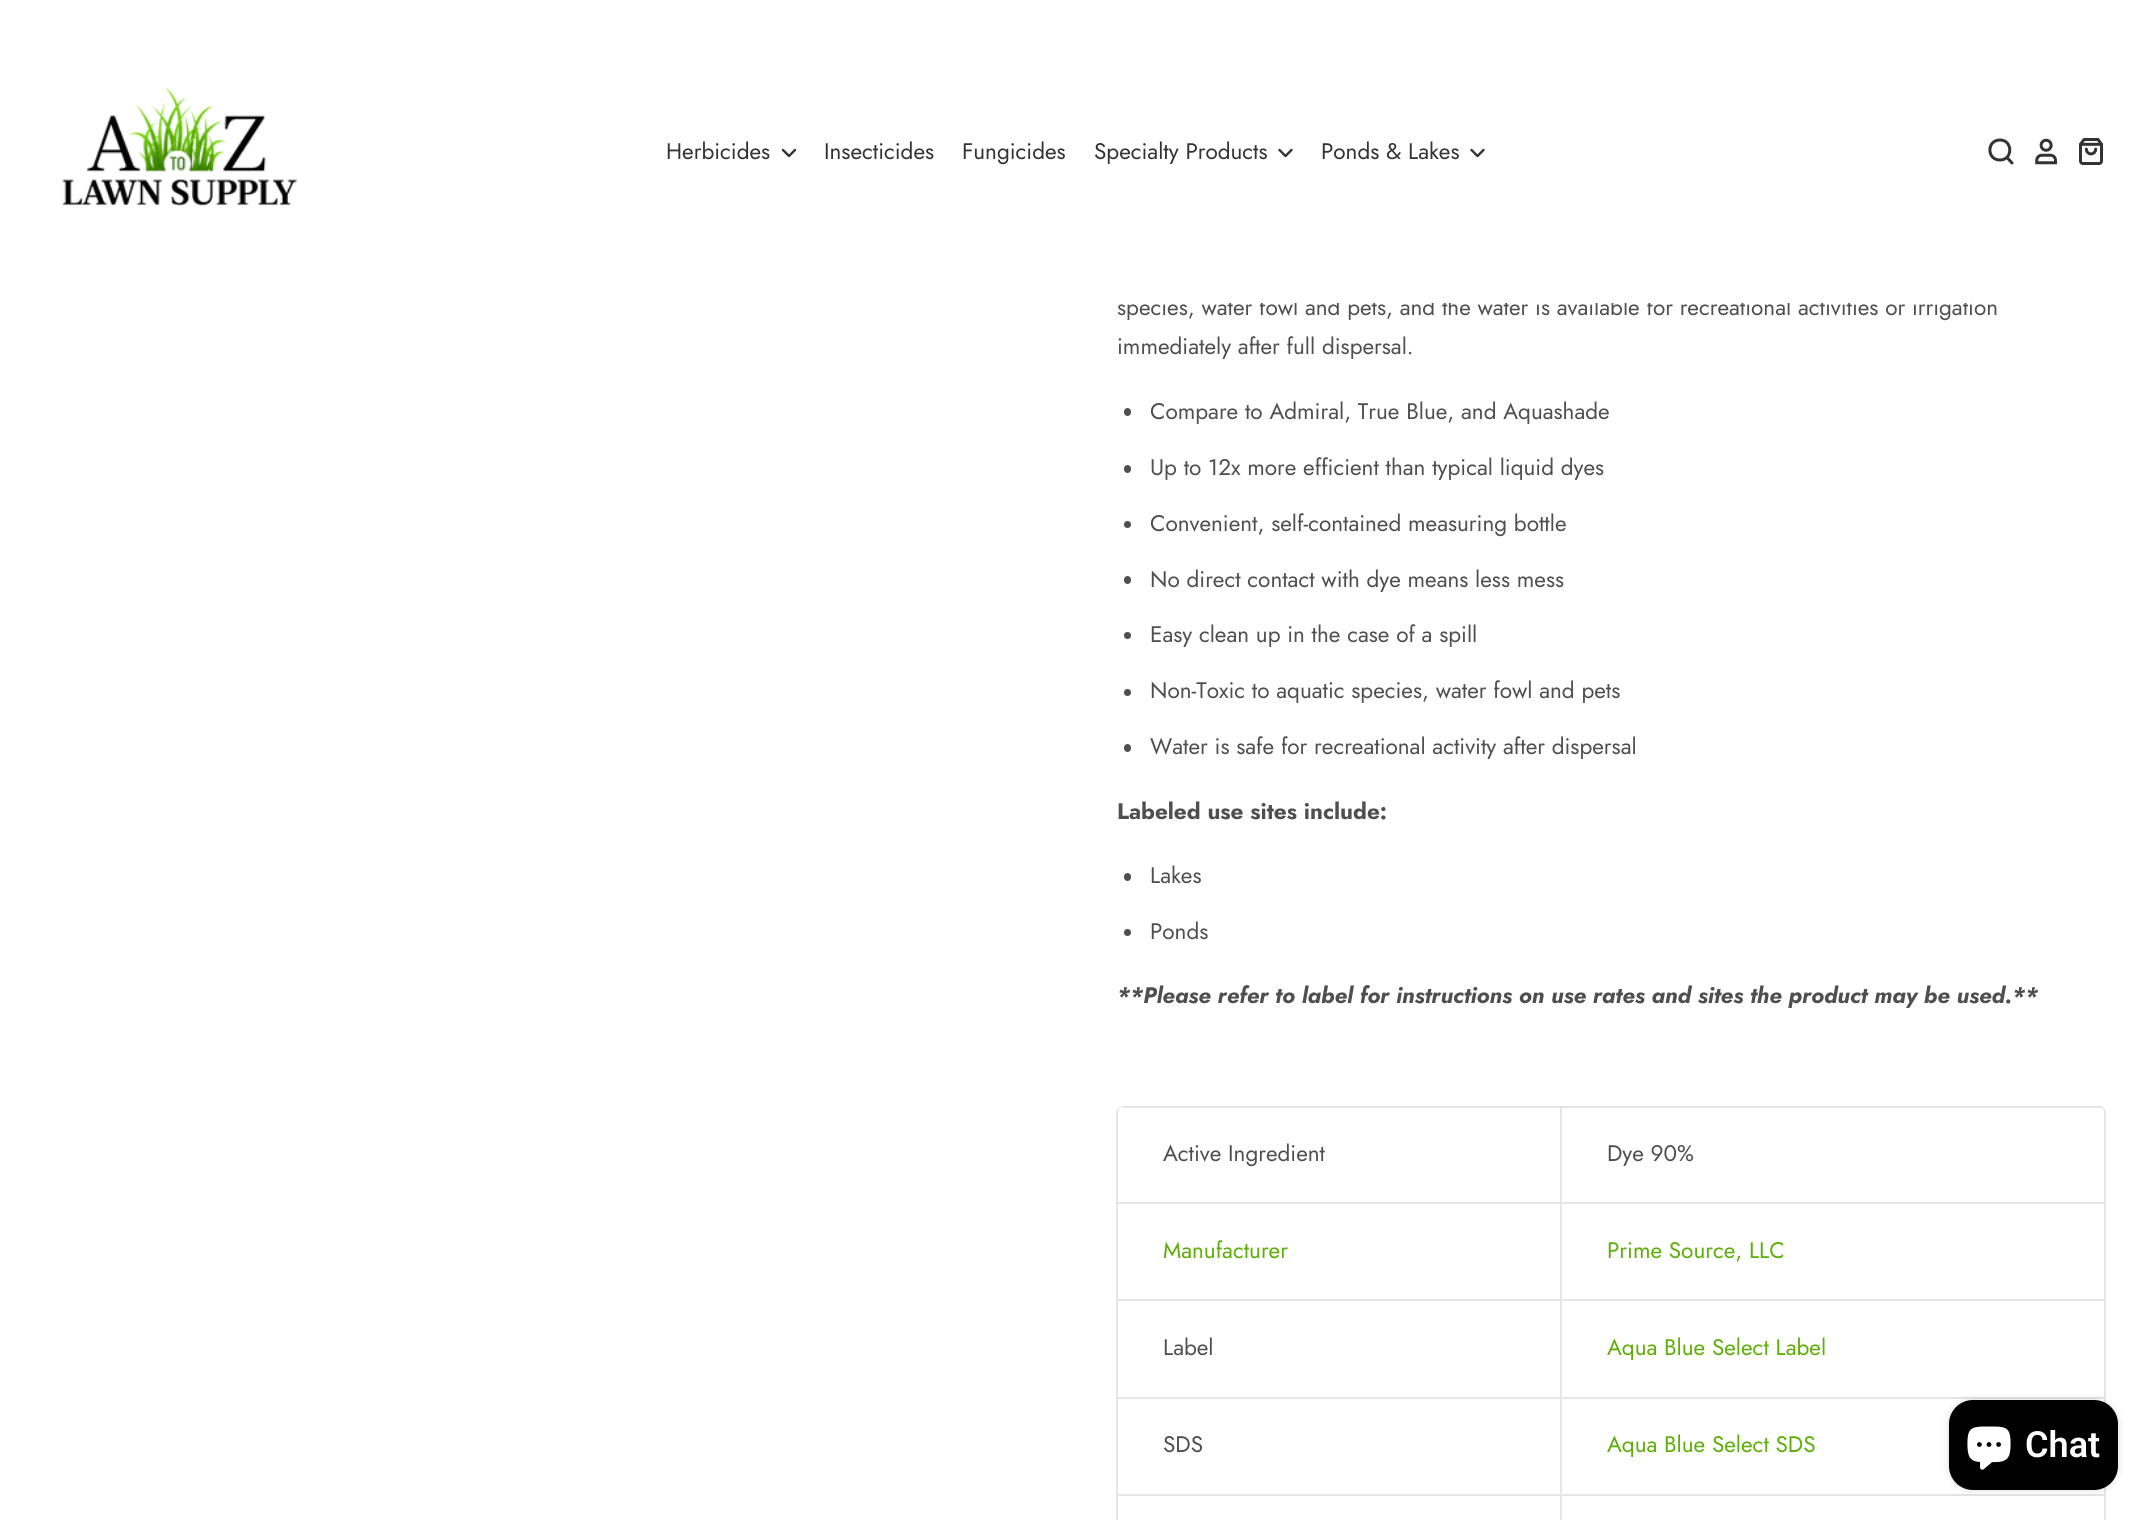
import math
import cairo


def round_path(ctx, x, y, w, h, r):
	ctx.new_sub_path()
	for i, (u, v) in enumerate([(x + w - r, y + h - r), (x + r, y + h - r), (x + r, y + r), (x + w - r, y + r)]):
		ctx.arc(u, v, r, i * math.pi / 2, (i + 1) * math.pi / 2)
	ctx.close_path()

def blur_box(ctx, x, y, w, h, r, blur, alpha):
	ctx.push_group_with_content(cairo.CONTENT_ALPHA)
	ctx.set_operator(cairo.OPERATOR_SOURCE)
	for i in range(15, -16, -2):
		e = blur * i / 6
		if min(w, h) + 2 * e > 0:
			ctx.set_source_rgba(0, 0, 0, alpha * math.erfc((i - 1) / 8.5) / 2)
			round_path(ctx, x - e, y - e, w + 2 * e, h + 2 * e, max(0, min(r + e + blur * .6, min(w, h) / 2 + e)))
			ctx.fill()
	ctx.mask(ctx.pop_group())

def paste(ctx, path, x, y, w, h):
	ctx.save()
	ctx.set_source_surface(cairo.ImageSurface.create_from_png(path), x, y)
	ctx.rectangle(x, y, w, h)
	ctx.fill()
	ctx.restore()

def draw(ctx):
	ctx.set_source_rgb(1, 1, 1)
	ctx.paint()
	ctx.select_font_face('Jost')
	ctx.set_font_size(22.5)
	ctx.set_source_rgb(0.31, 0.31, 0.31)
	ctx.move_to(1117, 315)
	ctx.show_text('species, water fowl and pets, and the water is available for recreational activities or irrigation')
	ctx.set_source_rgb(1, 1, 1)
	ctx.rectangle(1162, 297, 810, 6)
	ctx.fill()
	paste(ctx, 'media/1.png', 62, 87, 236, 119)
	ctx.set_source_rgb(0.2, 0.2, 0.2)
	ctx.move_to(666, 159)
	ctx.show_text('Herbicides')
	ctx.new_path()
	ctx.move_to(783, 150)
	ctx.line_to(789, 156)
	ctx.line_to(795, 150)
	ctx.set_line_width(2.4)
	ctx.set_line_cap(cairo.LINE_CAP_ROUND)
	ctx.set_line_join(cairo.LINE_JOIN_ROUND)
	ctx.stroke()
	for x, y, s in [
		(824, 159, 'Insecticides'),
		(962, 159, 'Fungicides'),
		(1094, 159, 'Specialty Products'),
	]:
		ctx.move_to(x, y)
		ctx.show_text(s)
	ctx.new_path()
	ctx.move_to(1279.5, 150)
	ctx.line_to(1285.5, 156)
	ctx.line_to(1291.5, 150)
	ctx.stroke()
	ctx.move_to(1321, 159)
	ctx.show_text('Ponds & Lakes')
	ctx.new_path()
	ctx.move_to(1471.5, 150)
	ctx.line_to(1477.5, 156)
	ctx.line_to(1483.5, 150)
	ctx.stroke()
	ctx.new_path()
	ctx.move_to(2000, 140)
	ctx.curve_to(1986.5, 140, 1986.5, 160, 2000, 160)
	ctx.curve_to(2013, 160, 2013, 140, 2000, 140)
	ctx.close_path()
	ctx.move_to(2012, 163)
	ctx.line_to(2007, 157.5)
	ctx.close_path()
	ctx.set_line_width(3)
	ctx.stroke()
	paste(ctx, 'media/2.png', 2035, 138, 22, 27)
	paste(ctx, 'media/3.png', 2079, 138, 24, 27)
	ctx.set_source_rgb(0.31, 0.31, 0.31)
	ctx.move_to(1117, 354)
	ctx.show_text('immediately after full dispersal.')
	round_path(ctx, 1124, 408, 7, 8, 3.5)
	ctx.fill()
	ctx.move_to(1150, 419)
	ctx.show_text('Compare to Admiral, True Blue, and Aquashade')
	round_path(ctx, 1124, 465, 7, 8, 3.5)
	ctx.fill()
	ctx.move_to(1150, 475)
	ctx.show_text('Up to 12x more efficient than typical liquid dyes')
	ctx.new_path()
	ctx.arc(1127.5, 524.5, 3.5, 0, 2 * math.pi)
	ctx.fill()
	ctx.move_to(1150, 531)
	ctx.show_text('Convenient, self-contained measuring bottle')
	round_path(ctx, 1124, 576, 7, 8, 3.5)
	ctx.fill()
	ctx.move_to(1150, 587)
	ctx.show_text('No direct contact with dye means less mess')
	ctx.new_path()
	ctx.arc(1127.5, 635.5, 3.5, 0, 2 * math.pi)
	ctx.fill()
	ctx.move_to(1150, 642)
	ctx.show_text('Easy clean up in the case of a spill')
	ctx.new_path()
	ctx.arc(1127.5, 692.5, 3.5, 0, 2 * math.pi)
	ctx.fill()
	ctx.move_to(1150, 698)
	ctx.show_text('Non-Toxic to aquatic species, water fowl and pets')
	round_path(ctx, 1124, 744, 7, 8, 3.5)
	ctx.fill()
	ctx.move_to(1150, 754)
	ctx.show_text('Water is safe for recreational activity after dispersal')
	ctx.select_font_face('Jost', cairo.FONT_SLANT_NORMAL, cairo.FONT_WEIGHT_BOLD)
	ctx.move_to(1117, 819)
	ctx.show_text('Labeled use sites include:')
	round_path(ctx, 1124, 873, 7, 8, 3.5)
	ctx.fill()
	ctx.select_font_face('Jost')
	ctx.move_to(1150, 883)
	ctx.show_text('Lakes')
	ctx.new_path()
	ctx.arc(1127.5, 932.5, 3.5, 0, 2 * math.pi)
	ctx.fill()
	ctx.move_to(1150, 939)
	ctx.show_text('Ponds')
	ctx.select_font_face('Jost', cairo.FONT_SLANT_ITALIC, cairo.FONT_WEIGHT_BOLD)
	ctx.move_to(1117, 1003)
	ctx.show_text('**Please refer to label for instructions on use rates and sites the product may be used.**')
	ctx.set_source_rgb(0.898, 0.898, 0.898)
	ctx.set_fill_rule(cairo.FILL_RULE_EVEN_ODD)
	ctx.new_path()
	ctx.move_to(1124, 1106)
	ctx.line_to(2098, 1106)
	ctx.curve_to(2103, 1106, 2106, 1109, 2106, 1113)
	ctx.line_to(2106, 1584)
	ctx.curve_to(2106, 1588, 2103, 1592, 2098, 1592)
	ctx.line_to(1124, 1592)
	ctx.curve_to(1119, 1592, 1116, 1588, 1116, 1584)
	ctx.line_to(1116, 1113)
	ctx.curve_to(1116, 1109, 1119, 1106, 1124, 1106)
	ctx.close_path()
	ctx.move_to(1124, 1106)
	ctx.line_to(2098, 1106)
	ctx.curve_to(2102, 1106, 2104, 1109, 2104, 1113)
	ctx.line_to(2104, 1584)
	ctx.curve_to(2104, 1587, 2102, 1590, 2098, 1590)
	ctx.line_to(1124, 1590)
	ctx.curve_to(1120, 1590, 1118, 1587, 1118, 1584)
	ctx.line_to(1118, 1113)
	ctx.curve_to(1118, 1109, 1120, 1106, 1124, 1106)
	ctx.close_path()
	ctx.fill()
	ctx.rectangle(1122, 1106, 980, 2)
	ctx.fill()
	ctx.select_font_face('Jost')
	ctx.set_source_rgb(0.31, 0.31, 0.31)
	ctx.move_to(1163, 1161)
	ctx.show_text('Active Ingredient')
	ctx.set_source_rgb(0.898, 0.898, 0.898)
	ctx.rectangle(1560, 1106, 2, 96)
	ctx.fill()
	ctx.set_source_rgb(0.31, 0.31, 0.31)
	ctx.move_to(1607, 1161)
	ctx.show_text('Dye 90%')
	ctx.set_source_rgb(0.898, 0.898, 0.898)
	ctx.rectangle(1118, 1202, 987, 2)
	ctx.fill()
	ctx.set_source_rgb(0.365, 0.682, 0.035)
	ctx.move_to(1163, 1258)
	ctx.show_text('Manufacturer')
	ctx.set_source_rgb(0.898, 0.898, 0.898)
	ctx.rectangle(1560, 1202, 2, 97)
	ctx.fill()
	ctx.set_source_rgb(0.365, 0.682, 0.035)
	ctx.move_to(1607, 1258)
	ctx.show_text('Prime Source, LLC')
	ctx.set_source_rgb(0.898, 0.898, 0.898)
	ctx.rectangle(1118, 1299, 987, 2)
	ctx.fill()
	ctx.set_source_rgb(0.31, 0.31, 0.31)
	ctx.move_to(1163, 1355)
	ctx.show_text('Label')
	ctx.set_source_rgb(0.898, 0.898, 0.898)
	ctx.rectangle(1560, 1299, 2, 98)
	ctx.fill()
	ctx.set_source_rgb(0.365, 0.682, 0.035)
	ctx.move_to(1607, 1355)
	ctx.show_text('Aqua Blue Select Label')
	ctx.set_source_rgb(0.898, 0.898, 0.898)
	ctx.rectangle(1118, 1397, 987, 2)
	ctx.fill()
	ctx.set_source_rgb(0.31, 0.31, 0.31)
	ctx.move_to(1163, 1452)
	ctx.show_text('SDS')
	ctx.set_source_rgb(0.898, 0.898, 0.898)
	ctx.rectangle(1560, 1397, 2, 97)
	ctx.fill()
	ctx.set_source_rgb(0.365, 0.682, 0.035)
	ctx.move_to(1607, 1452)
	ctx.show_text('Aqua Blue Select SDS')
	ctx.set_source_rgb(0.898, 0.898, 0.898)
	ctx.rectangle(1118, 1494, 987, 2)
	ctx.fill()
	ctx.rectangle(1560, 1494, 2, 26)
	ctx.fill()
	ctx.set_source_rgb(0, 0, 0)
	blur_box(ctx, 1949, 1400, 169, 90, 24, 4, 0.15)
	ctx.set_source_rgb(0, 0, 0)
	round_path(ctx, 1949, 1400, 169, 90, 24)
	ctx.fill()
	paste(ctx, 'media/4.png', 1967, 1426, 44, 44)
	ctx.select_font_face('Roboto SemiBold')
	ctx.set_font_size(36)
	ctx.set_source_rgb(1, 1, 1)
	ctx.move_to(2025, 1457)
	ctx.show_text('Chat')


surface = cairo.ImageSurface(cairo.FORMAT_RGB24, 2150, 1520)
ctx = cairo.Context(surface)
options = cairo.FontOptions()
options.set_hint_metrics(cairo.HINT_METRICS_OFF)
options.set_hint_style(cairo.HINT_STYLE_NONE)
ctx.set_font_options(options)
ctx.set_miter_limit(4)
draw(ctx)
surface.write_to_png('image.png')
